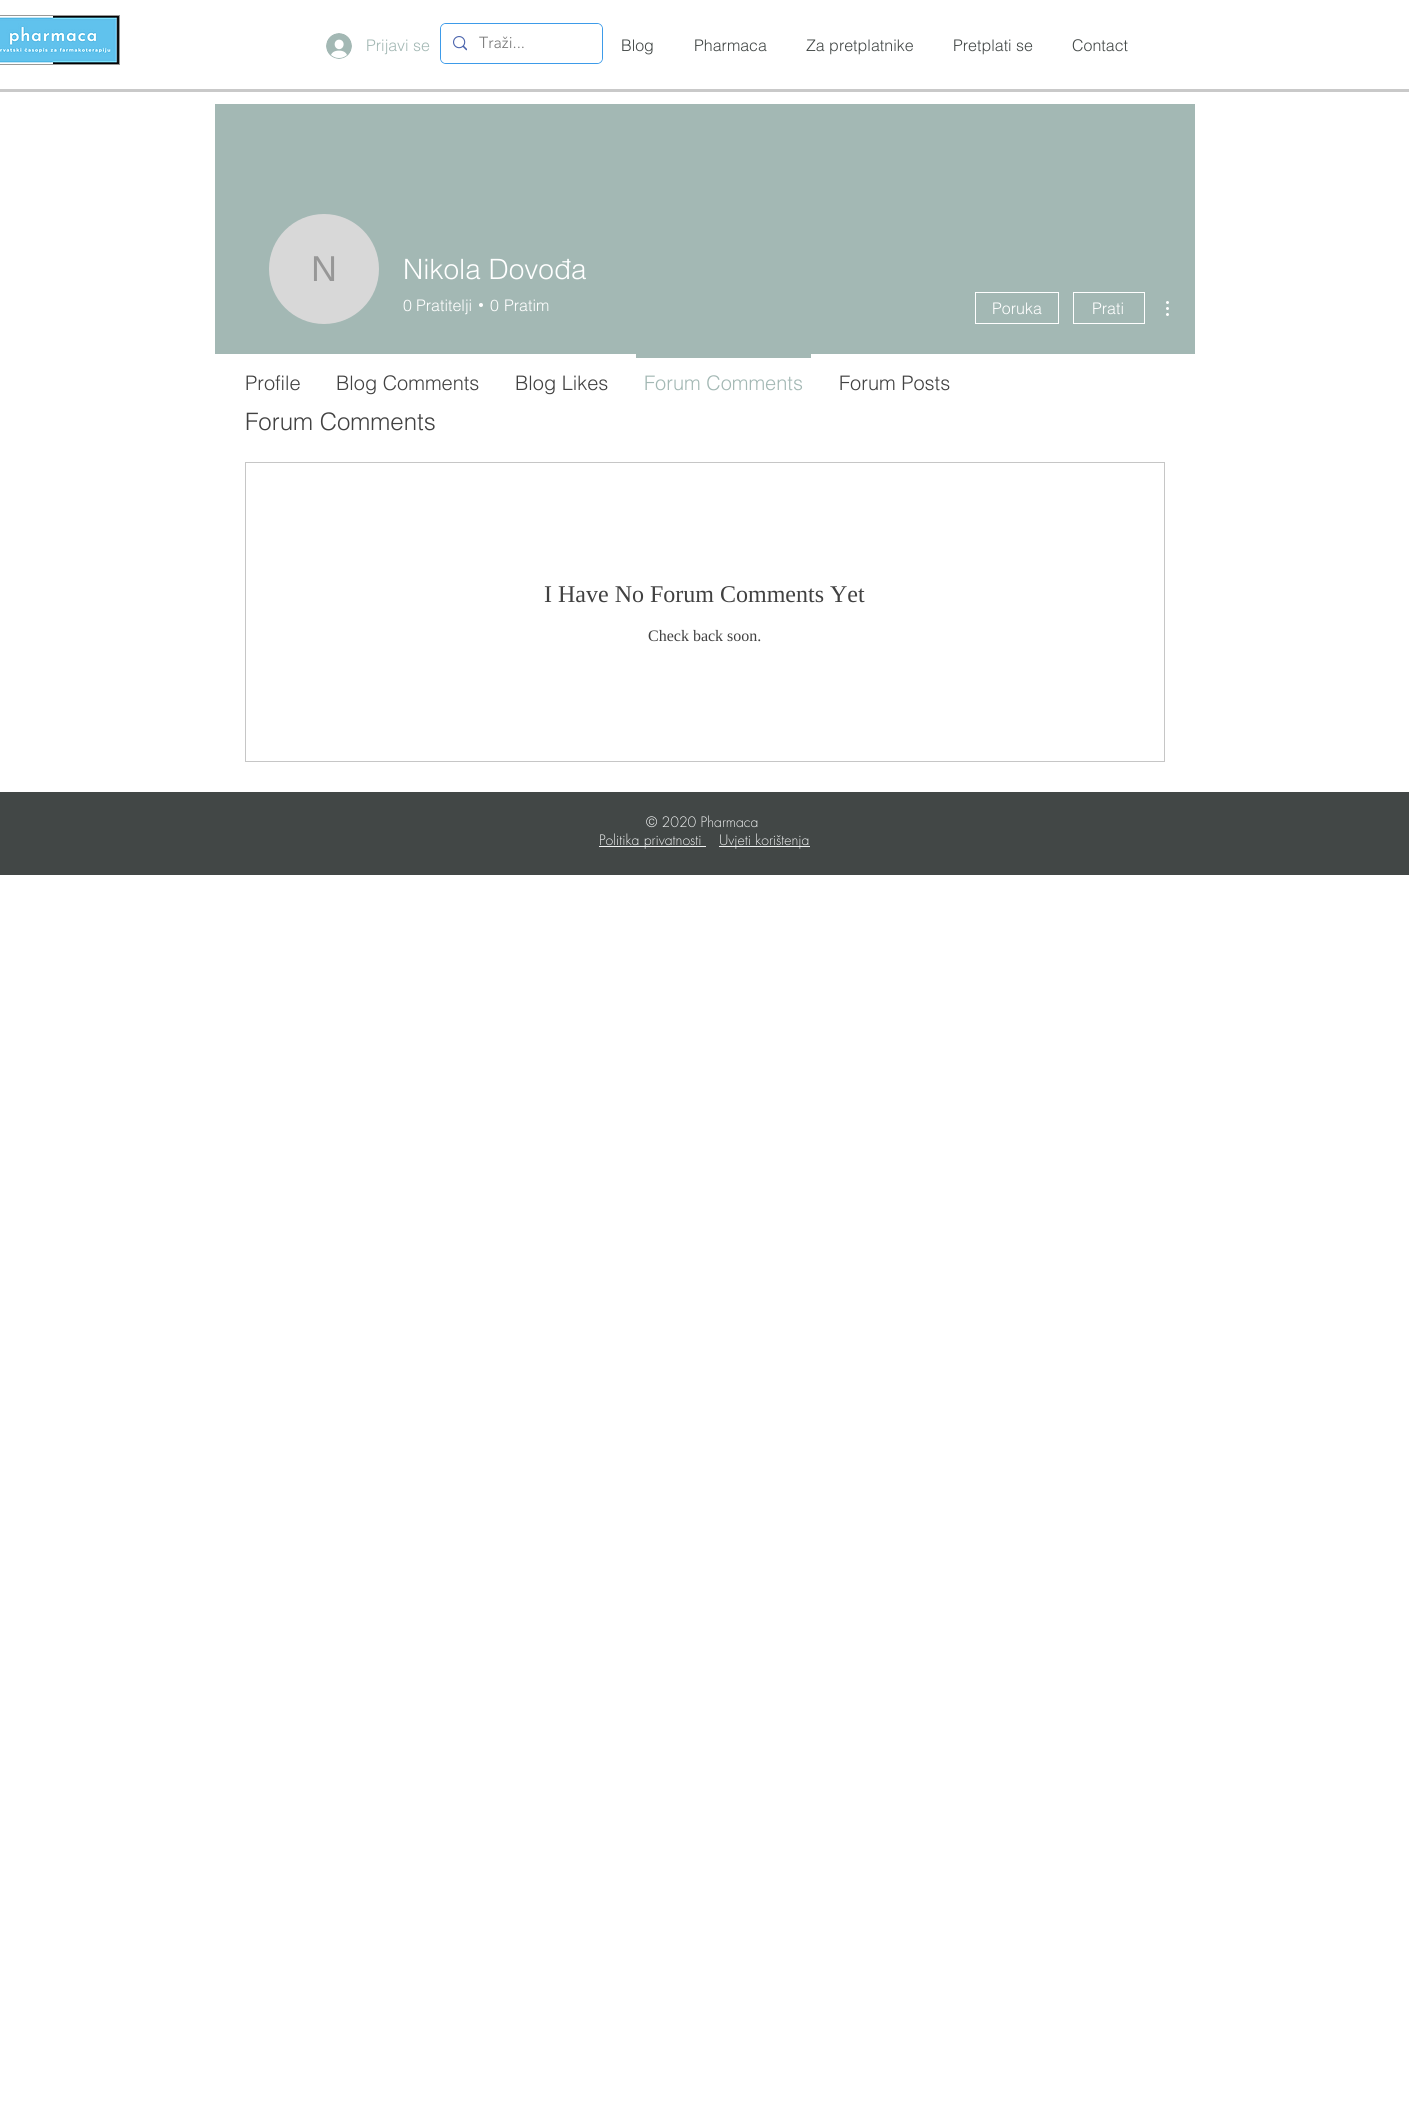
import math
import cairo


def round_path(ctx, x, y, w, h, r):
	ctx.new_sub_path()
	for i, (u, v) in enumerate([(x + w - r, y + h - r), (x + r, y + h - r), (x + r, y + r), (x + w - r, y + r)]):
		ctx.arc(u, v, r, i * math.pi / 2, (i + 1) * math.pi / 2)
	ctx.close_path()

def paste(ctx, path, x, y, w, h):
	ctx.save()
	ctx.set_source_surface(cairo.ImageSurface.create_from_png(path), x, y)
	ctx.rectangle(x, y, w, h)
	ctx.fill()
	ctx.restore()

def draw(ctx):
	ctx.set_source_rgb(1, 1, 1)
	ctx.paint()
	ctx.set_source_rgb(0.6, 0.6, 0.592)
	ctx.rectangle(0, 15, 120, 50)
	ctx.fill()
	paste(ctx, 'media/1.png', 0, 16, 119, 48)
	paste(ctx, 'media/2.png', 326, 33, 26, 26)
	ctx.select_font_face('helvetica Light')
	ctx.set_font_size(16)
	ctx.set_source_rgb(0.639, 0.722, 0.706)
	ctx.move_to(366, 51)
	ctx.show_text('Prijavi se')
	round_path(ctx, 440.5, 23.5, 162, 40, 5.5)
	ctx.set_source_rgb(0.239, 0.608, 0.914)
	ctx.set_line_width(1)
	ctx.stroke()
	ctx.set_source_rgb(1, 1, 1)
	round_path(ctx, 441, 24, 161, 39, 5)
	ctx.fill()
	paste(ctx, 'media/3.png', 453, 36, 14, 15)
	ctx.select_font_face('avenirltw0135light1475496 Light')
	ctx.set_source_rgb(0.471, 0.471, 0.471)
	ctx.move_to(479, 48)
	ctx.show_text('Traži...')
	ctx.set_source_rgb(0.788, 0.788, 0.788)
	ctx.rectangle(0, 89, 1409, 3)
	ctx.fill()
	ctx.select_font_face('helvetica Light')
	ctx.set_source_rgb(0.259, 0.278, 0.275)
	for x, y, s in [
		(621, 51, 'Blog'),
		(694, 51, 'Pharmaca'),
		(806, 51, 'Za pretplatnike'),
		(953, 51, 'Pretplati se'),
		(1072, 51, 'Contact'),
	]:
		ctx.move_to(x, y)
		ctx.show_text(s)
	ctx.set_source_rgb(0.639, 0.722, 0.706)
	ctx.rectangle(215, 104, 980, 250)
	ctx.fill()
	ctx.set_source_rgb(0.847, 0.847, 0.847)
	ctx.arc(324, 269, 55, 0, 2 * math.pi)
	ctx.fill()
	ctx.select_font_face('Liberation Sans')
	ctx.set_font_size(36)
	ctx.set_source_rgb(0.592, 0.592, 0.592)
	ctx.move_to(311, 281)
	ctx.show_text('N')
	ctx.select_font_face('helvetica Light')
	ctx.set_font_size(28)
	ctx.set_source_rgb(1, 1, 1)
	ctx.move_to(403, 279)
	ctx.show_text('Nikola Dovođa')
	ctx.set_font_size(16)
	ctx.move_to(403, 311)
	ctx.show_text('0')
	ctx.move_to(416, 311)
	ctx.show_text('Pratitelji')
	ctx.new_path()
	ctx.arc(481, 305, 2, 0, 2 * math.pi)
	ctx.fill()
	ctx.move_to(490, 311)
	ctx.show_text('0')
	ctx.move_to(504, 311)
	ctx.show_text('Pratim')
	ctx.rectangle(975.5, 292.5, 83, 31)
	ctx.stroke()
	ctx.move_to(992, 314)
	ctx.show_text('Poruka')
	ctx.rectangle(1073.5, 292.5, 71, 31)
	ctx.stroke()
	ctx.move_to(1092, 314)
	ctx.show_text('Prati')
	paste(ctx, 'media/4.png', 1166, 301, 3, 15)
	ctx.set_font_size(20)
	ctx.set_source_rgb(0.255, 0.255, 0.255)
	for x, y, s in [
		(245, 390, 'Profile'),
		(336, 390, 'Blog Comments'),
		(515, 390, 'Blog Likes'),
	]:
		ctx.move_to(x, y)
		ctx.show_text(s)
	ctx.set_source_rgb(0.639, 0.722, 0.706)
	ctx.rectangle(636, 354, 175, 4)
	ctx.fill()
	ctx.move_to(644, 390)
	ctx.show_text('Forum Comments')
	ctx.set_source_rgb(0.255, 0.255, 0.255)
	ctx.move_to(839, 390)
	ctx.show_text('Forum Posts')
	ctx.set_font_size(24)
	ctx.move_to(245, 430)
	ctx.show_text('Forum Comments')
	ctx.rectangle(245.5, 462.5, 919, 299)
	ctx.set_source_rgb(0.776, 0.776, 0.776)
	ctx.stroke()
	ctx.select_font_face('Liberation Serif')
	ctx.set_source_rgb(0.255, 0.255, 0.255)
	ctx.move_to(544, 602)
	ctx.show_text('I Have No Forum Comments Yet')
	ctx.set_font_size(16)
	ctx.move_to(648, 641)
	ctx.show_text('Check back soon.')
	ctx.set_source_rgb(0.259, 0.278, 0.275)
	ctx.rectangle(0, 792, 1409, 83)
	ctx.fill()
	ctx.select_font_face('futura Light')
	ctx.set_font_size(14)
	ctx.set_source_rgb(0.941, 0.949, 0.949)
	ctx.move_to(646, 827)
	ctx.show_text('© 2020 Pharmaca')
	ctx.rectangle(599, 846, 107, 1)
	ctx.fill()
	ctx.move_to(599, 845)
	ctx.show_text('Politika privatnosti')
	ctx.rectangle(719, 846, 91, 1)
	ctx.fill()
	ctx.move_to(719, 845)
	ctx.show_text('Uvjeti korištenja')


surface = cairo.ImageSurface(cairo.FORMAT_RGB24, 1409, 2103)
ctx = cairo.Context(surface)
options = cairo.FontOptions()
options.set_hint_metrics(cairo.HINT_METRICS_OFF)
options.set_hint_style(cairo.HINT_STYLE_NONE)
ctx.set_font_options(options)
ctx.set_miter_limit(4)
draw(ctx)
surface.write_to_png('image.png')
